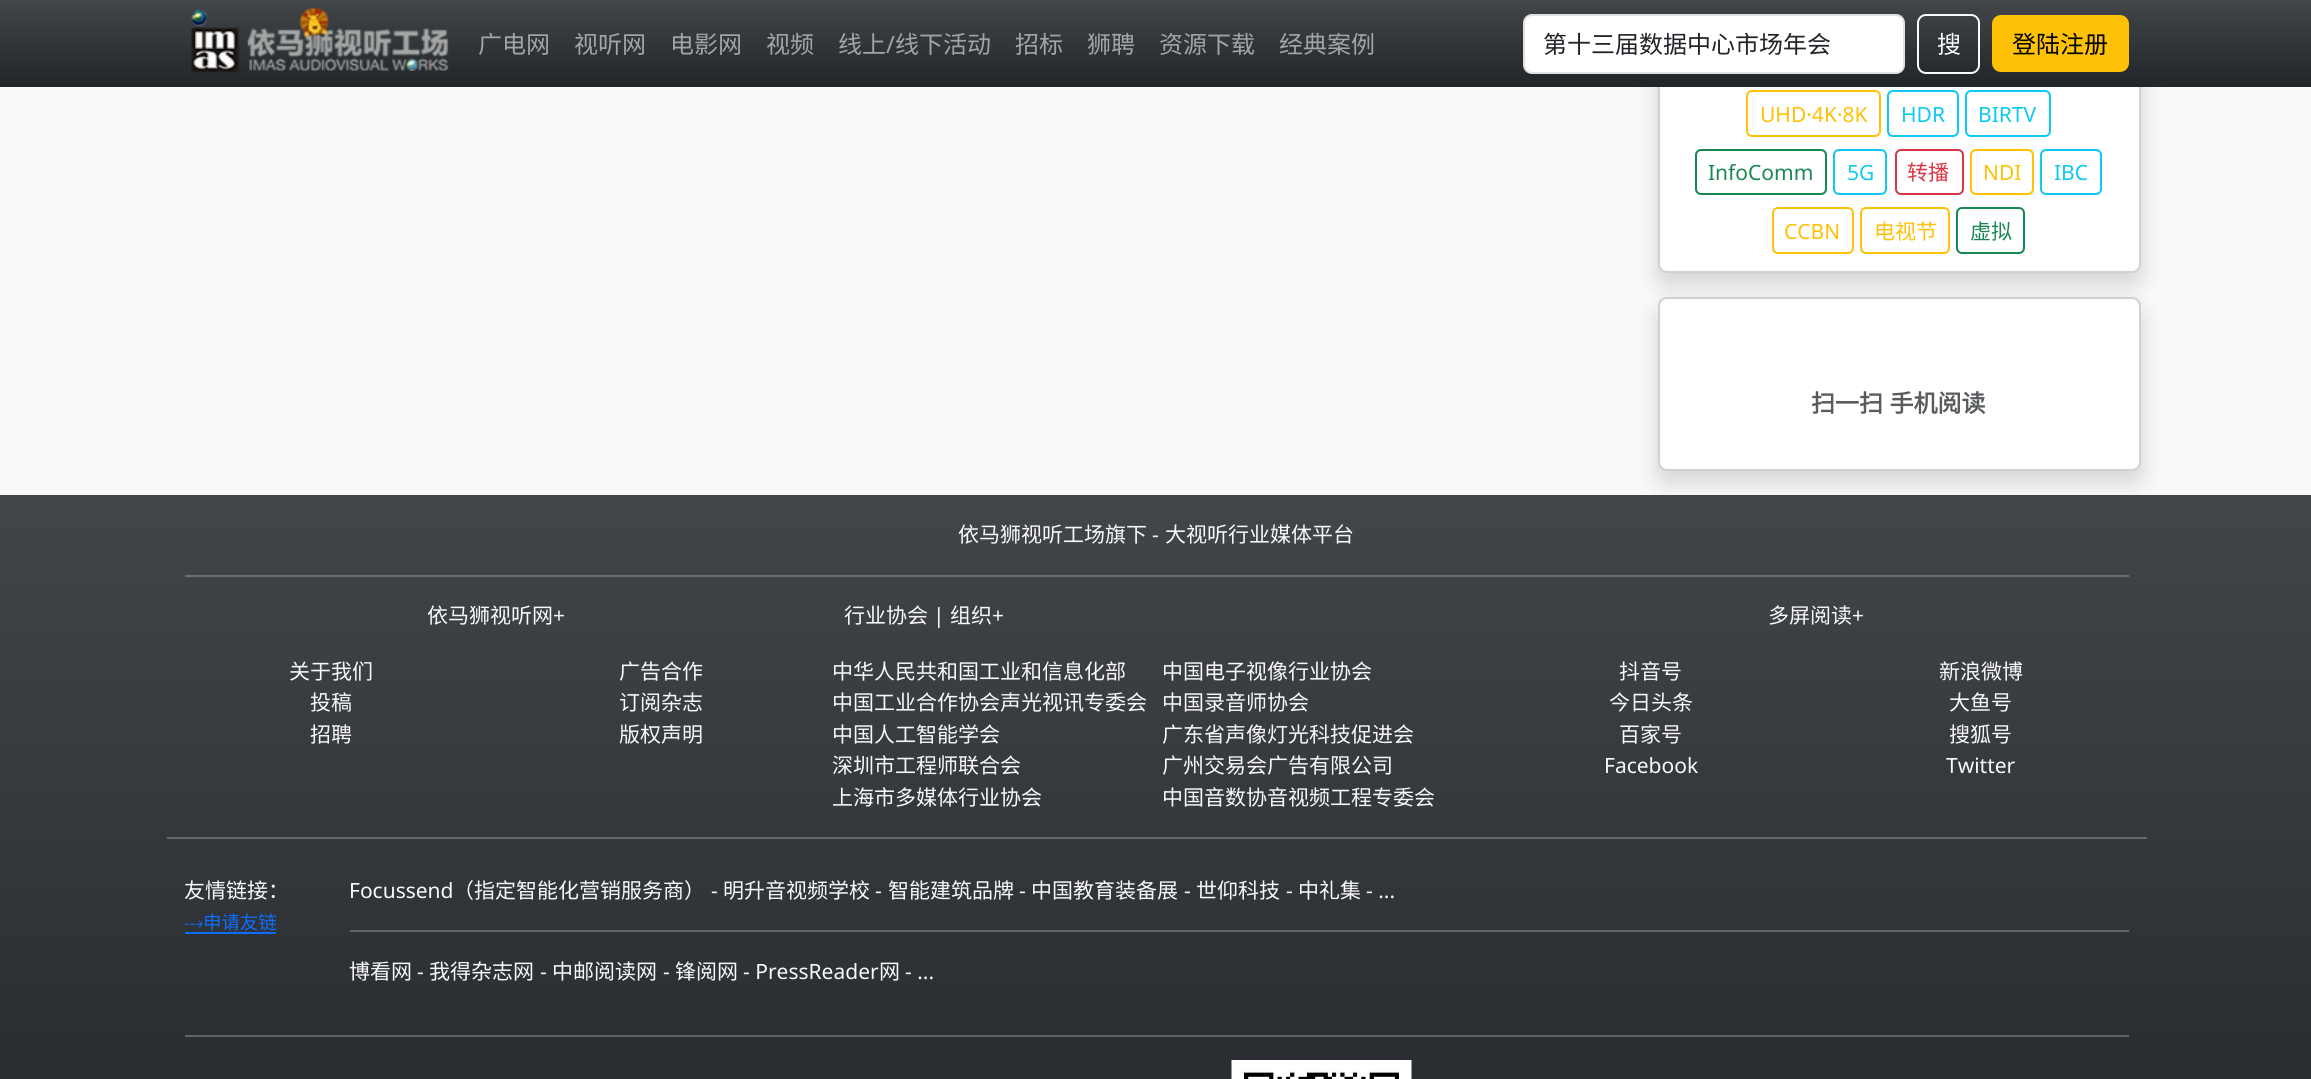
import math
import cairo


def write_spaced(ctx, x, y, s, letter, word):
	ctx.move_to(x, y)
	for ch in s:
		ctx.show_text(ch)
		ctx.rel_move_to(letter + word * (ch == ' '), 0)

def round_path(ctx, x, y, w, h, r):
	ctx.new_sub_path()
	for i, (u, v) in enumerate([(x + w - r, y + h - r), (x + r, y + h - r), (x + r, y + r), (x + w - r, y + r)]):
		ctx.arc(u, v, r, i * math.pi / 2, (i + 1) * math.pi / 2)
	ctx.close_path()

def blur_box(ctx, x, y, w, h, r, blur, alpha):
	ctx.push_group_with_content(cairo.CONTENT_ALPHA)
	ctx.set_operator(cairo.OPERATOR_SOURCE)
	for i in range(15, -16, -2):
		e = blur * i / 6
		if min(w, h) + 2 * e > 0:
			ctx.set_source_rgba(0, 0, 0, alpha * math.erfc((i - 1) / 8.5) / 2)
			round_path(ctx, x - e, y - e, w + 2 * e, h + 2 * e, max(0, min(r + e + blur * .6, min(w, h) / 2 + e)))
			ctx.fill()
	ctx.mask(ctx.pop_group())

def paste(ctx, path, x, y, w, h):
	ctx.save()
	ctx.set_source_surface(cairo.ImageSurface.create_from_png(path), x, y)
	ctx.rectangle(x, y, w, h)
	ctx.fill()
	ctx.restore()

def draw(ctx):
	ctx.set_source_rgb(0.973, 0.976, 0.98)
	ctx.paint()
	ctx.set_source_rgb(0, 0, 0)
	blur_box(ctx, 1658, 15, 483, 270, 9, 12, 0.15)
	ctx.set_source_rgb(1, 1, 1)
	round_path(ctx, 1658, 3, 483, 270, 9)
	ctx.fill()
	round_path(ctx, 1659, 4, 481, 268, 8)
	ctx.set_source_rgba(0, 0, 0, 0.18)
	ctx.stroke()
	gradient = cairo.LinearGradient(1156, 0, 1156, 87)
	gradient.add_color_stop_rgba(0, 0.259, 0.275, 0.286, 1)
	gradient.add_color_stop_rgba(1, 0.129, 0.145, 0.161, 1)
	ctx.set_source(gradient)
	ctx.rectangle(0, 0, 2311, 87)
	ctx.fill()
	paste(ctx, 'media/1.png', 191, 8, 258, 65)
	ctx.select_font_face('Noto Sans CJK SC')
	ctx.set_font_size(24)
	ctx.set_source_rgb(0.639, 0.643, 0.651)
	for x, y, s in [
		(478, 53, '广电网'),
		(574, 53, '视听网'),
		(670, 53, '电影网'),
		(766, 53, '视频'),
		(838, 53, '线上'),
	]:
		ctx.move_to(x, y)
		ctx.show_text(s)
	ctx.select_font_face('Noto Sans')
	ctx.move_to(886, 53)
	ctx.show_text('/')
	ctx.select_font_face('Noto Sans CJK SC')
	for x, y, s in [
		(895, 53, '线下活动'),
		(1015, 53, '招标'),
		(1087, 53, '狮聘'),
		(1159, 53, '资源下载'),
		(1279, 53, '经典案例'),
	]:
		ctx.move_to(x, y)
		ctx.show_text(s)
	ctx.set_source_rgb(1, 1, 1)
	round_path(ctx, 1524, 15, 380, 58, 8)
	ctx.fill_preserve()
	ctx.set_source_rgb(0.871, 0.886, 0.902)
	ctx.stroke()
	ctx.set_source_rgb(0.129, 0.145, 0.161)
	ctx.move_to(1543, 53)
	ctx.show_text('第十三届数据中心市场年会')
	round_path(ctx, 1918, 15, 61, 58, 8)
	ctx.set_source_rgb(0.973, 0.976, 0.98)
	ctx.stroke()
	ctx.move_to(1937, 53)
	ctx.show_text('搜')
	ctx.set_source_rgb(1, 0.757, 0.027)
	round_path(ctx, 1993, 16, 135, 55, 8)
	ctx.fill_preserve()
	ctx.stroke()
	ctx.set_source_rgb(0, 0, 0)
	ctx.move_to(2012, 53)
	ctx.show_text('登陆注册')
	round_path(ctx, 1747, 91, 133, 45, 5)
	ctx.set_source_rgb(1, 0.757, 0.027)
	ctx.stroke()
	ctx.select_font_face('Noto Sans')
	ctx.set_font_size(21)
	ctx.move_to(1760, 122)
	ctx.show_text('UHD·4K·8K')
	round_path(ctx, 1888, 91, 70, 45, 5)
	ctx.set_source_rgb(0.051, 0.792, 0.941)
	ctx.stroke()
	ctx.move_to(1901, 122)
	ctx.show_text('HDR')
	round_path(ctx, 1966, 91, 84, 45, 5)
	ctx.stroke()
	ctx.move_to(1978, 122)
	ctx.show_text('BIRTV')
	round_path(ctx, 1696, 150, 130, 44, 5)
	ctx.set_source_rgb(0.098, 0.529, 0.329)
	ctx.stroke()
	ctx.move_to(1708, 180)
	ctx.show_text('InfoComm')
	round_path(ctx, 1834, 150, 52, 44, 5)
	ctx.set_source_rgb(0.051, 0.792, 0.941)
	ctx.stroke()
	ctx.move_to(1847, 180)
	ctx.show_text('5G')
	round_path(ctx, 1896, 150, 67, 44, 5)
	ctx.set_source_rgb(0.863, 0.208, 0.271)
	ctx.stroke()
	ctx.select_font_face('Noto Sans CJK SC')
	ctx.move_to(1907, 180)
	ctx.show_text('转播')
	round_path(ctx, 1971, 150, 62, 44, 5)
	ctx.set_source_rgb(1, 0.757, 0.027)
	ctx.stroke()
	ctx.select_font_face('Noto Sans')
	ctx.move_to(1983, 180)
	ctx.show_text('NDI')
	round_path(ctx, 2041, 150, 60, 44, 5)
	ctx.set_source_rgb(0.051, 0.792, 0.941)
	ctx.stroke()
	ctx.move_to(2054, 180)
	ctx.show_text('IBC')
	round_path(ctx, 1773, 208, 80, 45, 5)
	ctx.set_source_rgb(1, 0.757, 0.027)
	ctx.stroke()
	ctx.move_to(1784, 239)
	ctx.show_text('CCBN')
	round_path(ctx, 1861, 208, 88, 45, 5)
	ctx.stroke()
	ctx.select_font_face('Noto Sans CJK SC')
	ctx.move_to(1874, 239)
	ctx.show_text('电视节')
	round_path(ctx, 1957, 208, 67, 45, 5)
	ctx.set_source_rgb(0.098, 0.529, 0.329)
	ctx.stroke()
	ctx.move_to(1970, 239)
	ctx.show_text('虚拟')
	gradient = cairo.LinearGradient(1156, 495, 1156, 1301)
	gradient.add_color_stop_rgba(0, 0.259, 0.271, 0.286, 1)
	gradient.add_color_stop_rgba(1, 0.125, 0.141, 0.157, 1)
	ctx.set_source(gradient)
	ctx.rectangle(0, 495, 2311, 584)
	ctx.fill()
	ctx.set_source_rgb(0, 0, 0)
	blur_box(ctx, 1658, 309, 483, 174, 9, 12, 0.15)
	ctx.set_source_rgb(1, 1, 1)
	round_path(ctx, 1658, 297, 483, 174, 9)
	ctx.fill()
	round_path(ctx, 1659, 298, 481, 172, 8)
	ctx.set_source_rgba(0, 0, 0, 0.18)
	ctx.stroke()
	ctx.select_font_face('Noto Sans CJK SC', cairo.FONT_SLANT_NORMAL, cairo.FONT_WEIGHT_BOLD)
	ctx.set_font_size(24)
	ctx.set_source_rgb(0.349, 0.361, 0.373)
	write_spaced(ctx, 1811, 412, '扫一扫 手机阅读', 0, 1)
	ctx.select_font_face('Noto Sans CJK SC')
	ctx.set_font_size(21)
	ctx.set_source_rgb(0.973, 0.976, 0.98)
	ctx.move_to(958, 542)
	ctx.show_text('依马狮视听工场旗下')
	ctx.select_font_face('Noto Sans')
	ctx.move_to(1152, 542)
	ctx.show_text('-')
	ctx.select_font_face('Noto Sans CJK SC')
	ctx.move_to(1165, 542)
	ctx.show_text('大视听行业媒体平台')
	ctx.set_source_rgb(0.427, 0.439, 0.451)
	ctx.rectangle(185, 575, 1944, 2)
	ctx.fill()
	ctx.set_source_rgb(0.973, 0.976, 0.98)
	ctx.move_to(427, 623)
	ctx.show_text('依马狮视听网')
	ctx.select_font_face('Noto Sans')
	ctx.move_to(553, 623)
	ctx.show_text('+')
	ctx.select_font_face('Noto Sans CJK SC')
	for x, y, s in [
		(289, 679, '关于我们'),
		(619, 679, '广告合作'),
		(310, 710, '投稿'),
		(619, 710, '订阅杂志'),
		(310, 742, '招聘'),
		(619, 742, '版权声明'),
		(844, 623, '行业协会'),
	]:
		ctx.move_to(x, y)
		ctx.show_text(s)
	ctx.select_font_face('Noto Sans')
	ctx.move_to(933, 623)
	ctx.show_text('|')
	ctx.select_font_face('Noto Sans CJK SC')
	ctx.move_to(950, 623)
	ctx.show_text('组织')
	ctx.select_font_face('Noto Sans')
	ctx.move_to(992, 623)
	ctx.show_text('+')
	ctx.select_font_face('Noto Sans CJK SC')
	for x, y, s in [
		(832, 679, '中华人民共和国工业和信息化部'),
		(1162, 679, '中国电子视像行业协会'),
		(832, 710, '中国工业合作协会声光视讯专委会'),
		(1162, 710, '中国录音师协会'),
		(832, 742, '中国人工智能学会'),
		(1162, 742, '广东省声像灯光科技促进会'),
		(832, 773, '深圳市工程师联合会'),
		(1162, 773, '广州交易会广告有限公司'),
		(832, 805, '上海市多媒体行业协会'),
		(1162, 805, '中国音数协音视频工程专委会'),
		(1768, 623, '多屏阅读'),
	]:
		ctx.move_to(x, y)
		ctx.show_text(s)
	ctx.select_font_face('Noto Sans')
	ctx.move_to(1852, 623)
	ctx.show_text('+')
	ctx.select_font_face('Noto Sans CJK SC')
	for x, y, s in [
		(1619, 679, '抖音号'),
		(1939, 679, '新浪微博'),
		(1609, 710, '今日头条'),
		(1949, 710, '大鱼号'),
		(1619, 742, '百家号'),
		(1949, 742, '搜狐号'),
	]:
		ctx.move_to(x, y)
		ctx.show_text(s)
	ctx.select_font_face('Noto Sans')
	ctx.move_to(1604, 773)
	ctx.show_text('Facebook')
	ctx.move_to(1946, 773)
	ctx.show_text('Twitter')
	ctx.set_source_rgb(0.396, 0.408, 0.42)
	ctx.rectangle(167, 837, 1980, 2)
	ctx.fill()
	ctx.select_font_face('Noto Sans CJK SC')
	ctx.set_source_rgb(0.973, 0.976, 0.98)
	ctx.move_to(184, 898)
	ctx.show_text('友情链接：')
	ctx.select_font_face('FreeSerif')
	ctx.set_font_size(18.5)
	ctx.set_source_rgb(0.051, 0.431, 0.992)
	ctx.move_to(184, 929)
	ctx.show_text('⤏')
	ctx.rectangle(185, 932, 91, 2)
	ctx.fill()
	ctx.select_font_face('Noto Sans CJK SC')
	ctx.move_to(203, 929)
	ctx.show_text('申请友链')
	ctx.select_font_face('Noto Sans')
	ctx.set_font_size(21)
	ctx.set_source_rgb(0.973, 0.976, 0.98)
	ctx.move_to(349, 898)
	ctx.show_text('Focussend')
	ctx.select_font_face('Noto Sans CJK SC')
	ctx.move_to(453, 898)
	ctx.show_text('（指定智能化营销服务商）')
	ctx.select_font_face('Noto Sans')
	ctx.move_to(711, 898)
	ctx.show_text('-')
	ctx.select_font_face('Noto Sans CJK SC')
	ctx.move_to(723, 898)
	ctx.show_text('明升音视频学校')
	ctx.select_font_face('Noto Sans')
	ctx.move_to(875, 898)
	ctx.show_text('-')
	ctx.select_font_face('Noto Sans CJK SC')
	ctx.move_to(888, 898)
	ctx.show_text('智能建筑品牌')
	ctx.select_font_face('Noto Sans')
	ctx.move_to(1019, 898)
	ctx.show_text('-')
	ctx.select_font_face('Noto Sans CJK SC')
	ctx.move_to(1031, 898)
	ctx.show_text('中国教育装备展')
	ctx.select_font_face('Noto Sans')
	ctx.move_to(1184, 898)
	ctx.show_text('-')
	ctx.select_font_face('Noto Sans CJK SC')
	ctx.move_to(1196, 898)
	ctx.show_text('世仰科技')
	ctx.select_font_face('Noto Sans')
	ctx.move_to(1286, 898)
	ctx.show_text('-')
	ctx.select_font_face('Noto Sans CJK SC')
	ctx.move_to(1298, 898)
	ctx.show_text('中礼集')
	ctx.select_font_face('Noto Sans')
	ctx.move_to(1366, 898)
	ctx.show_text('- ...')
	ctx.set_source_rgb(0.384, 0.396, 0.408)
	ctx.rectangle(350, 930, 1779, 2)
	ctx.fill()
	ctx.select_font_face('Noto Sans CJK SC')
	ctx.set_source_rgb(0.973, 0.976, 0.98)
	ctx.move_to(349, 979)
	ctx.show_text('博看网')
	ctx.select_font_face('Noto Sans')
	ctx.move_to(417, 979)
	ctx.show_text('-')
	ctx.select_font_face('Noto Sans CJK SC')
	ctx.move_to(429, 979)
	ctx.show_text('我得杂志网')
	ctx.select_font_face('Noto Sans')
	ctx.move_to(540, 979)
	ctx.show_text('-')
	ctx.select_font_face('Noto Sans CJK SC')
	ctx.move_to(552, 979)
	ctx.show_text('中邮阅读网')
	ctx.select_font_face('Noto Sans')
	ctx.move_to(663, 979)
	ctx.show_text('-')
	ctx.select_font_face('Noto Sans CJK SC')
	ctx.move_to(675, 979)
	ctx.show_text('锋阅网')
	ctx.select_font_face('Noto Sans')
	ctx.move_to(743, 979)
	ctx.show_text('- PressReader')
	ctx.select_font_face('Noto Sans CJK SC')
	ctx.move_to(879, 979)
	ctx.show_text('网')
	ctx.select_font_face('Noto Sans')
	ctx.move_to(905, 979)
	ctx.show_text('- ...')
	ctx.set_source_rgb(0.369, 0.384, 0.396)
	ctx.rectangle(185, 1035, 1944, 2)
	ctx.fill()
	paste(ctx, 'media/2.png', 1231, 1060, 181, 19)


surface = cairo.ImageSurface(cairo.FORMAT_RGB24, 2311, 1079)
ctx = cairo.Context(surface)
options = cairo.FontOptions()
options.set_hint_metrics(cairo.HINT_METRICS_OFF)
options.set_hint_style(cairo.HINT_STYLE_NONE)
ctx.set_font_options(options)
ctx.set_miter_limit(4)
draw(ctx)
surface.write_to_png('image.png')
